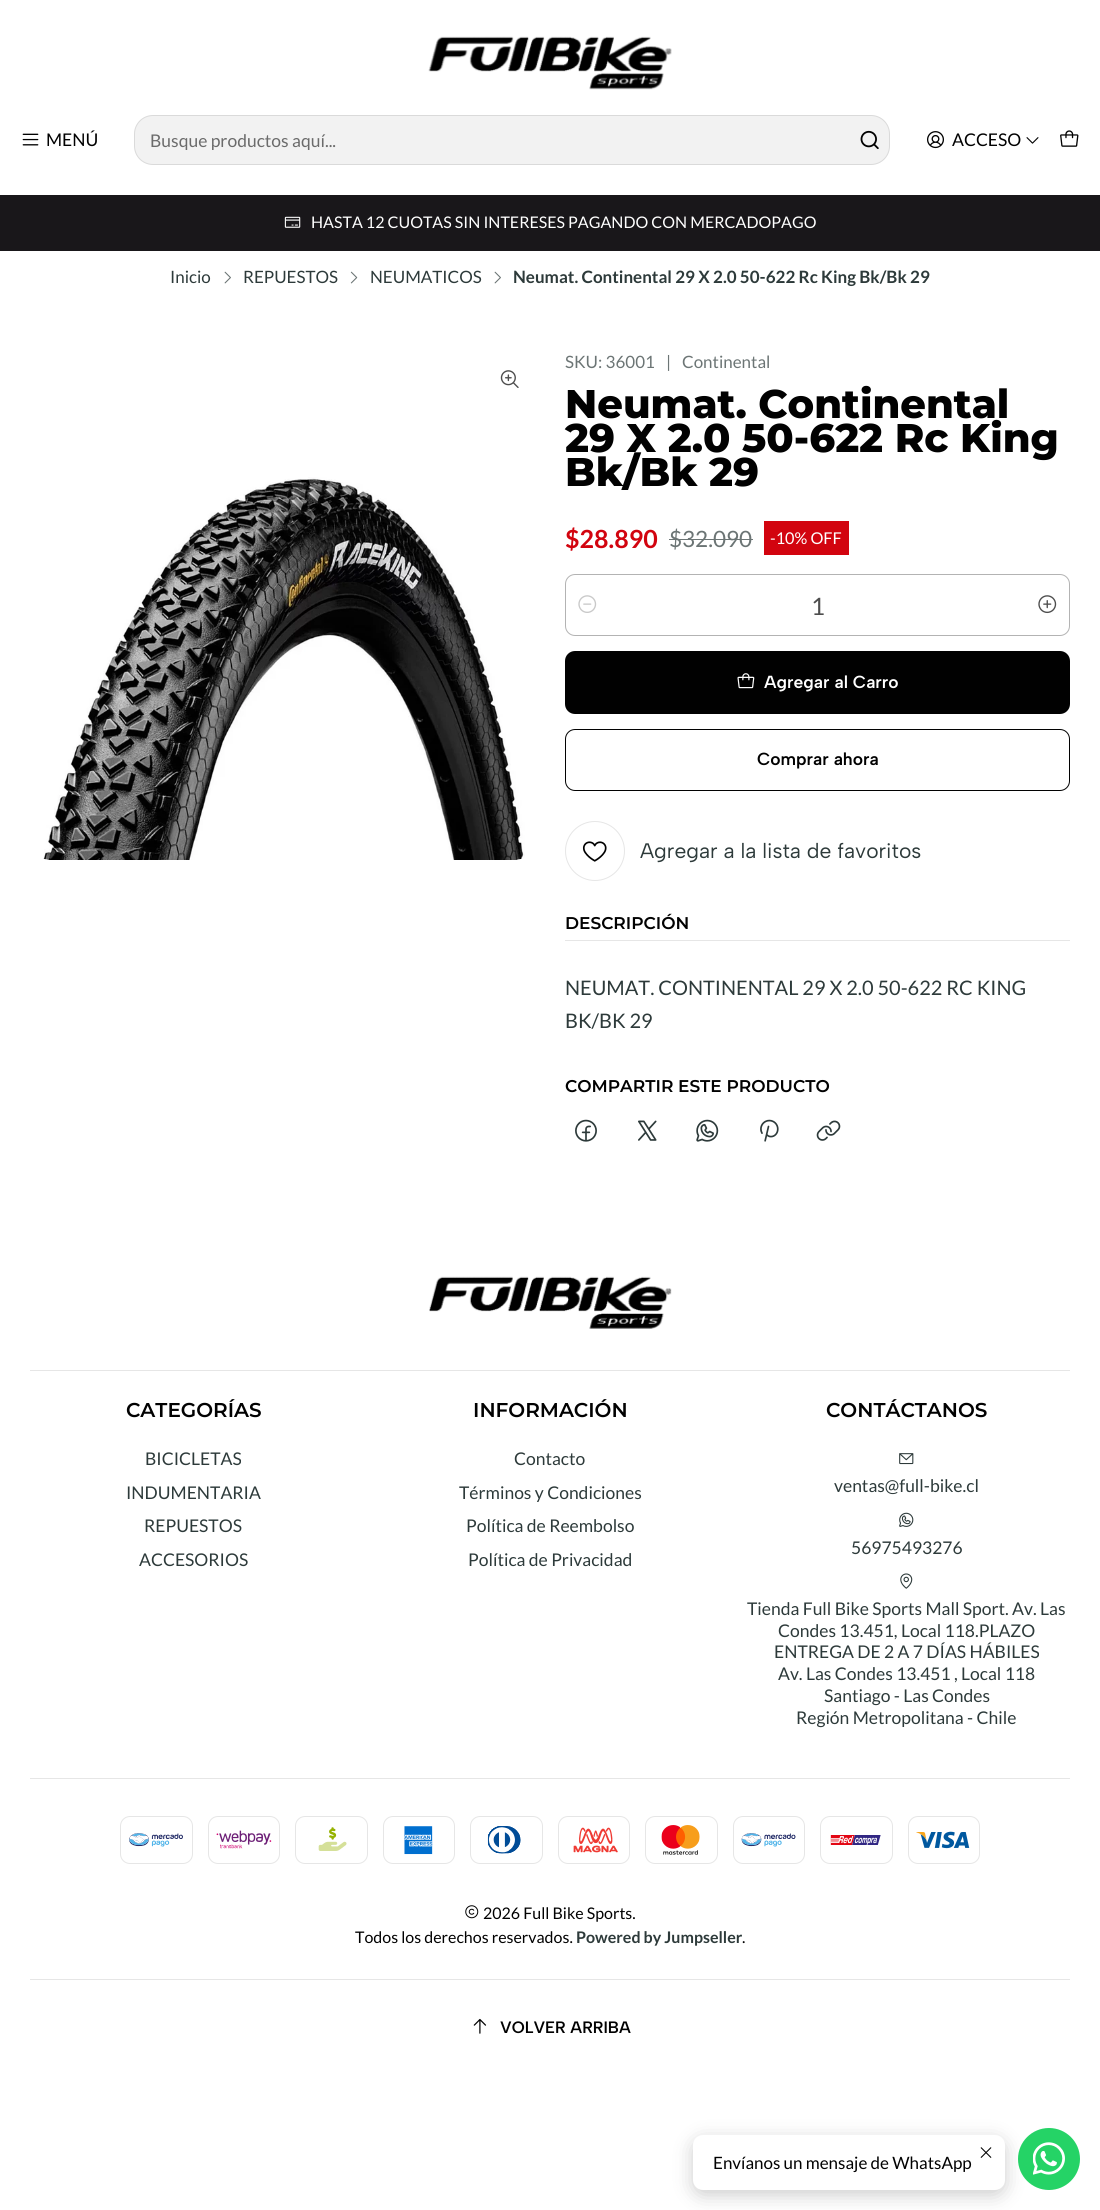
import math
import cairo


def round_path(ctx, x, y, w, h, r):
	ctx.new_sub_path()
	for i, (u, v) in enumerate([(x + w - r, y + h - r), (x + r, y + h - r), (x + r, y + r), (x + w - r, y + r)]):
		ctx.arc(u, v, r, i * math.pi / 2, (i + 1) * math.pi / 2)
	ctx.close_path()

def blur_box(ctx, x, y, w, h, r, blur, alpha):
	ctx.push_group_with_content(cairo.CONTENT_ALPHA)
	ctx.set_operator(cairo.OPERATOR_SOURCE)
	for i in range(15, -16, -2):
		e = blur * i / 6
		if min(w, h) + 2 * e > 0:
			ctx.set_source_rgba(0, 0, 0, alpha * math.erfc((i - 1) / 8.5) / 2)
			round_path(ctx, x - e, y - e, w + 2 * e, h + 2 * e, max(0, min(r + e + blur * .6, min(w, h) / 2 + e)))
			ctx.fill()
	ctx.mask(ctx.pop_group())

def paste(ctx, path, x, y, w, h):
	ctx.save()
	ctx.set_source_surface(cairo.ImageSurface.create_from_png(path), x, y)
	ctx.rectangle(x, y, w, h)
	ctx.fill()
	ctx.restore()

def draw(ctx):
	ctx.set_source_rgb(1, 1, 1)
	ctx.paint()
	paste(ctx, 'media/1.png', 428, 36, 244, 54)
	paste(ctx, 'media/2.png', 22, 133, 17, 13)
	ctx.select_font_face('Lato')
	ctx.set_font_size(17.5)
	ctx.set_source_rgb(0.004, 0.004, 0.004)
	ctx.move_to(46, 146)
	ctx.show_text('MENÚ')
	ctx.set_source_rgb(0.949, 0.949, 0.949)
	round_path(ctx, 134, 115, 756, 50, 19)
	ctx.fill()
	round_path(ctx, 134.5, 115.5, 755, 49, 18.5)
	ctx.set_source_rgba(0.004, 0.004, 0.004, 0.1)
	ctx.set_line_width(1)
	ctx.stroke()
	ctx.set_source_rgb(0.42, 0.42, 0.42)
	ctx.move_to(150, 147)
	ctx.show_text('Busque productos aquí...')
	paste(ctx, 'media/3.png', 860, 130, 19, 20)
	paste(ctx, 'media/4.png', 927, 131, 17, 18)
	ctx.set_source_rgb(0.004, 0.004, 0.004)
	ctx.move_to(952, 146)
	ctx.show_text('ACCESO')
	paste(ctx, 'media/5.png', 1026, 137, 13, 7)
	paste(ctx, 'media/6.png', 1060, 130, 19, 17)
	ctx.set_source_rgb(0.098, 0.09, 0.102)
	ctx.rectangle(0, 195, 1100, 56)
	ctx.fill()
	paste(ctx, 'media/7.png', 284, 216, 17, 12)
	ctx.set_font_size(16)
	ctx.set_source_rgb(1, 1, 1)
	ctx.move_to(311, 228)
	ctx.show_text('HASTA 12 CUOTAS SIN INTERESES PAGANDO CON MERCADOPAGO')
	ctx.set_font_size(17)
	ctx.set_source_rgb(0.176, 0.227, 0.227)
	ctx.move_to(170, 283)
	ctx.show_text('Inicio')
	paste(ctx, 'media/8.png', 224, 271, 7, 13)
	ctx.move_to(243, 283)
	ctx.show_text('REPUESTOS')
	paste(ctx, 'media/9.png', 350, 271, 8, 13)
	ctx.move_to(370, 283)
	ctx.show_text('NEUMATICOS')
	paste(ctx, 'media/8.png', 494, 271, 7, 13)
	ctx.select_font_face('Lato', cairo.FONT_SLANT_NORMAL, cairo.FONT_WEIGHT_BOLD)
	ctx.move_to(513, 283)
	ctx.show_text('Neumat. Continental 29 X 2.0 50-622 Rc King Bk/Bk 29')
	paste(ctx, 'media/10.png', 500, 370, 19, 18)
	paste(ctx, 'media/11.png', 43, 477, 482, 383)
	ctx.select_font_face('Lato')
	ctx.set_source_rgb(0.424, 0.459, 0.459)
	for x, y, s in [
		(565, 368, 'SKU: 36001'),
		(666, 368, '|'),
		(682, 368, 'Continental'),
	]:
		ctx.move_to(x, y)
		ctx.show_text(s)
	ctx.select_font_face('Montserrat ExtraBold')
	ctx.set_font_size(40)
	ctx.set_source_rgb(0.004, 0.004, 0.004)
	for x, y, s in [
		(565, 418, 'Neumat. Continental'),
		(565, 452, '29 X 2.0 50-622 Rc King'),
		(565, 486, 'Bk/Bk 29'),
	]:
		ctx.move_to(x, y)
		ctx.show_text(s)
	ctx.select_font_face('Lato', cairo.FONT_SLANT_NORMAL, cairo.FONT_WEIGHT_BOLD)
	ctx.set_font_size(25)
	ctx.set_source_rgb(0.824, 0.016, 0.059)
	ctx.move_to(565, 548)
	ctx.show_text('$28.890')
	ctx.select_font_face('Lato')
	ctx.set_font_size(22.5)
	ctx.set_source_rgb(0.424, 0.459, 0.459)
	ctx.move_to(669, 547)
	ctx.show_text('$32.090')
	ctx.rectangle(669, 539, 84, 1)
	ctx.fill()
	ctx.set_source_rgb(0.824, 0.016, 0.059)
	ctx.rectangle(764, 521, 85, 34)
	ctx.fill()
	ctx.set_font_size(16.25)
	ctx.set_source_rgb(1, 1, 1)
	ctx.move_to(770, 544)
	ctx.show_text('-10% OFF')
	round_path(ctx, 565.5, 574.5, 504, 61, 9.5)
	ctx.set_source_rgb(0.702, 0.702, 0.702)
	ctx.stroke()
	paste(ctx, 'media/12.png', 578, 595, 19, 18)
	ctx.set_font_size(24)
	ctx.set_source_rgb(0.302, 0.302, 0.302)
	ctx.move_to(811, 615)
	ctx.show_text('1')
	paste(ctx, 'media/13.png', 1038, 595, 19, 19)
	ctx.set_source_rgb(0.004, 0.004, 0.004)
	round_path(ctx, 565, 651, 505, 63, 10)
	ctx.fill()
	paste(ctx, 'media/14.png', 737, 673, 18, 16)
	ctx.select_font_face('Albert Sans SemiBold')
	ctx.set_font_size(17.5)
	ctx.set_source_rgb(1, 1, 1)
	ctx.move_to(764, 688)
	ctx.show_text('Agregar al Carro')
	round_path(ctx, 565.5, 729.5, 504, 61, 9.5)
	ctx.set_source_rgb(0.004, 0.004, 0.004)
	ctx.stroke()
	ctx.move_to(757, 765)
	ctx.show_text('Comprar ahora')
	ctx.new_path()
	ctx.arc(595, 851, 29.5, 0, 2 * math.pi)
	ctx.set_source_rgb(0.902, 0.902, 0.902)
	ctx.stroke()
	paste(ctx, 'media/15.png', 582, 841, 25, 21)
	ctx.select_font_face('Albert Sans')
	ctx.set_font_size(21)
	ctx.set_source_rgb(0.176, 0.227, 0.227)
	ctx.move_to(640, 858)
	ctx.show_text('Agregar a la lista de favoritos')
	ctx.set_source_rgb(0.902, 0.902, 0.902)
	ctx.rectangle(565, 940, 505, 1)
	ctx.fill()
	ctx.select_font_face('Montserrat SemiBold')
	ctx.set_font_size(17)
	ctx.set_source_rgb(0.004, 0.004, 0.004)
	ctx.move_to(565, 929)
	ctx.show_text('DESCRIPCIÓN')
	ctx.select_font_face('Lato')
	ctx.set_font_size(20)
	ctx.set_source_rgb(0.176, 0.227, 0.227)
	ctx.move_to(565, 995)
	ctx.show_text('NEUMAT. CONTINENTAL 29 X 2.0 50-622 RC KING')
	ctx.move_to(565, 1028)
	ctx.show_text('BK/BK 29')
	ctx.select_font_face('Montserrat SemiBold')
	ctx.set_font_size(17)
	ctx.set_source_rgb(0.004, 0.004, 0.004)
	ctx.move_to(565, 1092)
	ctx.show_text('COMPARTIR ESTE PRODUCTO')
	paste(ctx, 'media/16.png', 575, 1119, 22, 23)
	paste(ctx, 'media/17.png', 638, 1120, 19, 21)
	paste(ctx, 'media/18.png', 696, 1119, 23, 23)
	paste(ctx, 'media/19.png', 760, 1119, 19, 23)
	paste(ctx, 'media/20.png', 816, 1120, 25, 21)
	paste(ctx, 'media/21.png', 429, 1276, 243, 53)
	ctx.set_source_rgb(0.902, 0.902, 0.902)
	ctx.rectangle(30, 1370, 1040, 1)
	ctx.fill()
	ctx.set_font_size(20)
	ctx.set_source_rgb(0.004, 0.004, 0.004)
	ctx.move_to(126, 1417)
	ctx.show_text('CATEGORÍAS')
	ctx.select_font_face('Lato')
	ctx.set_font_size(17.5)
	ctx.set_source_rgb(0.176, 0.227, 0.227)
	for x, y, s in [
		(145, 1465, 'BICICLETAS'),
		(126, 1499, 'INDUMENTARIA'),
		(144, 1532, 'REPUESTOS'),
		(139, 1566, 'ACCESORIOS'),
	]:
		ctx.move_to(x, y)
		ctx.show_text(s)
	ctx.select_font_face('Montserrat SemiBold')
	ctx.set_font_size(20)
	ctx.set_source_rgb(0.004, 0.004, 0.004)
	ctx.move_to(473, 1417)
	ctx.show_text('INFORMACIÓN')
	ctx.select_font_face('Lato')
	ctx.set_font_size(17.5)
	ctx.set_source_rgb(0.176, 0.227, 0.227)
	for x, y, s in [
		(514, 1465, 'Contacto'),
		(459, 1499, 'Términos y Condiciones'),
		(466, 1532, 'Política de Reembolso'),
		(468, 1566, 'Política de Privacidad'),
	]:
		ctx.move_to(x, y)
		ctx.show_text(s)
	ctx.select_font_face('Montserrat SemiBold')
	ctx.set_font_size(20)
	ctx.set_source_rgb(0.004, 0.004, 0.004)
	ctx.move_to(826, 1417)
	ctx.show_text('CONTÁCTANOS')
	paste(ctx, 'media/22.png', 899, 1453, 15, 12)
	ctx.select_font_face('Lato')
	ctx.set_font_size(17.5)
	ctx.set_source_rgb(0.176, 0.227, 0.227)
	ctx.move_to(834, 1492)
	ctx.show_text('ventas@full-bike.cl')
	paste(ctx, 'media/23.png', 899, 1512, 15, 15)
	ctx.move_to(851, 1554)
	ctx.show_text('56975493276')
	paste(ctx, 'media/24.png', 900, 1573, 13, 16)
	for x, y, s in [
		(747, 1615, 'Tienda Full Bike Sports Mall Sport. Av. Las'),
		(778, 1637, 'Condes 13.451, Local 118.PLAZO'),
		(774, 1658, 'ENTREGA DE 2 A 7 DÍAS HÁBILES'),
		(778, 1680, 'Av. Las Condes 13.451 , Local 118'),
		(824, 1702, 'Santiago - Las Condes'),
		(796, 1724, 'Región Metropolitana - Chile'),
	]:
		ctx.move_to(x, y)
		ctx.show_text(s)
	ctx.set_source_rgb(0.902, 0.902, 0.902)
	ctx.rectangle(30, 1778, 1040, 1)
	ctx.fill()
	round_path(ctx, 120.5, 1816.5, 72, 47, 9.5)
	ctx.stroke()
	paste(ctx, 'media/25.png', 129, 1833, 54, 14)
	round_path(ctx, 208.5, 1816.5, 71, 47, 9.5)
	ctx.stroke()
	paste(ctx, 'media/26.png', 216, 1830, 56, 19)
	round_path(ctx, 295.5, 1816.5, 72, 47, 9.5)
	ctx.stroke()
	paste(ctx, 'media/27.png', 318, 1827, 29, 24)
	round_path(ctx, 383.5, 1816.5, 71, 47, 9.5)
	ctx.stroke()
	paste(ctx, 'media/28.png', 404, 1826, 29, 29)
	round_path(ctx, 470.5, 1816.5, 72, 47, 9.5)
	ctx.stroke()
	paste(ctx, 'media/29.png', 487, 1826, 34, 28)
	round_path(ctx, 558.5, 1816.5, 71, 47, 9.5)
	ctx.stroke()
	paste(ctx, 'media/30.png', 573, 1827, 45, 26)
	round_path(ctx, 645.5, 1816.5, 72, 47, 9.5)
	ctx.stroke()
	paste(ctx, 'media/31.png', 661, 1825, 39, 30)
	round_path(ctx, 733.5, 1816.5, 71, 47, 9.5)
	ctx.stroke()
	paste(ctx, 'media/32.png', 741, 1833, 55, 14)
	round_path(ctx, 820.5, 1816.5, 72, 47, 9.5)
	ctx.stroke()
	paste(ctx, 'media/33.png', 830, 1835, 51, 10)
	round_path(ctx, 908.5, 1816.5, 71, 47, 9.5)
	ctx.stroke()
	paste(ctx, 'media/34.png', 916, 1831, 54, 18)
	paste(ctx, 'media/35.png', 465, 1905, 14, 14)
	ctx.set_font_size(16)
	ctx.set_source_rgb(0.004, 0.004, 0.004)
	ctx.move_to(483, 1919)
	ctx.show_text('2026 Full Bike Sports.')
	ctx.move_to(355, 1943)
	ctx.show_text('Todos los derechos reservados.')
	ctx.select_font_face('Lato', cairo.FONT_SLANT_NORMAL, cairo.FONT_WEIGHT_BOLD)
	ctx.set_source_rgb(0.176, 0.227, 0.227)
	ctx.move_to(576, 1943)
	ctx.show_text('Powered by Jumpseller')
	ctx.select_font_face('Lato')
	ctx.set_source_rgb(0.004, 0.004, 0.004)
	ctx.move_to(742, 1943)
	ctx.show_text('.')
	ctx.set_source_rgb(0.902, 0.902, 0.902)
	ctx.rectangle(30, 1979, 1040, 1)
	ctx.fill()
	paste(ctx, 'media/36.png', 473, 2018, 14, 16)
	ctx.select_font_face('Albert Sans SemiBold')
	ctx.set_font_size(16.5)
	ctx.set_source_rgb(0.004, 0.004, 0.004)
	ctx.move_to(500, 2033)
	ctx.show_text('VOLVER ARRIBA')
	ctx.set_source_rgb(0, 0, 0)
	blur_box(ctx, 693, 2140, 312, 55, 10, 9.5, 0.2)
	ctx.set_source_rgb(1, 1, 1)
	round_path(ctx, 693, 2135, 312, 55, 10)
	ctx.fill()
	paste(ctx, 'media/37.png', 980, 2147, 12, 11)
	ctx.select_font_face('Lato')
	ctx.set_font_size(17)
	ctx.set_source_rgb(0.004, 0.004, 0.004)
	ctx.move_to(713, 2169)
	ctx.show_text('Envíanos un mensaje de WhatsApp')
	ctx.set_source_rgb(0.145, 0.827, 0.4)
	ctx.new_path()
	ctx.arc(1049, 2159, 31, 0, 2 * math.pi)
	ctx.fill()
	paste(ctx, 'media/38.png', 1033, 2142, 32, 33)


surface = cairo.ImageSurface(cairo.FORMAT_RGB24, 1100, 2210)
ctx = cairo.Context(surface)
options = cairo.FontOptions()
options.set_hint_metrics(cairo.HINT_METRICS_OFF)
options.set_hint_style(cairo.HINT_STYLE_NONE)
ctx.set_font_options(options)
ctx.set_miter_limit(4)
draw(ctx)
surface.write_to_png('image.png')
